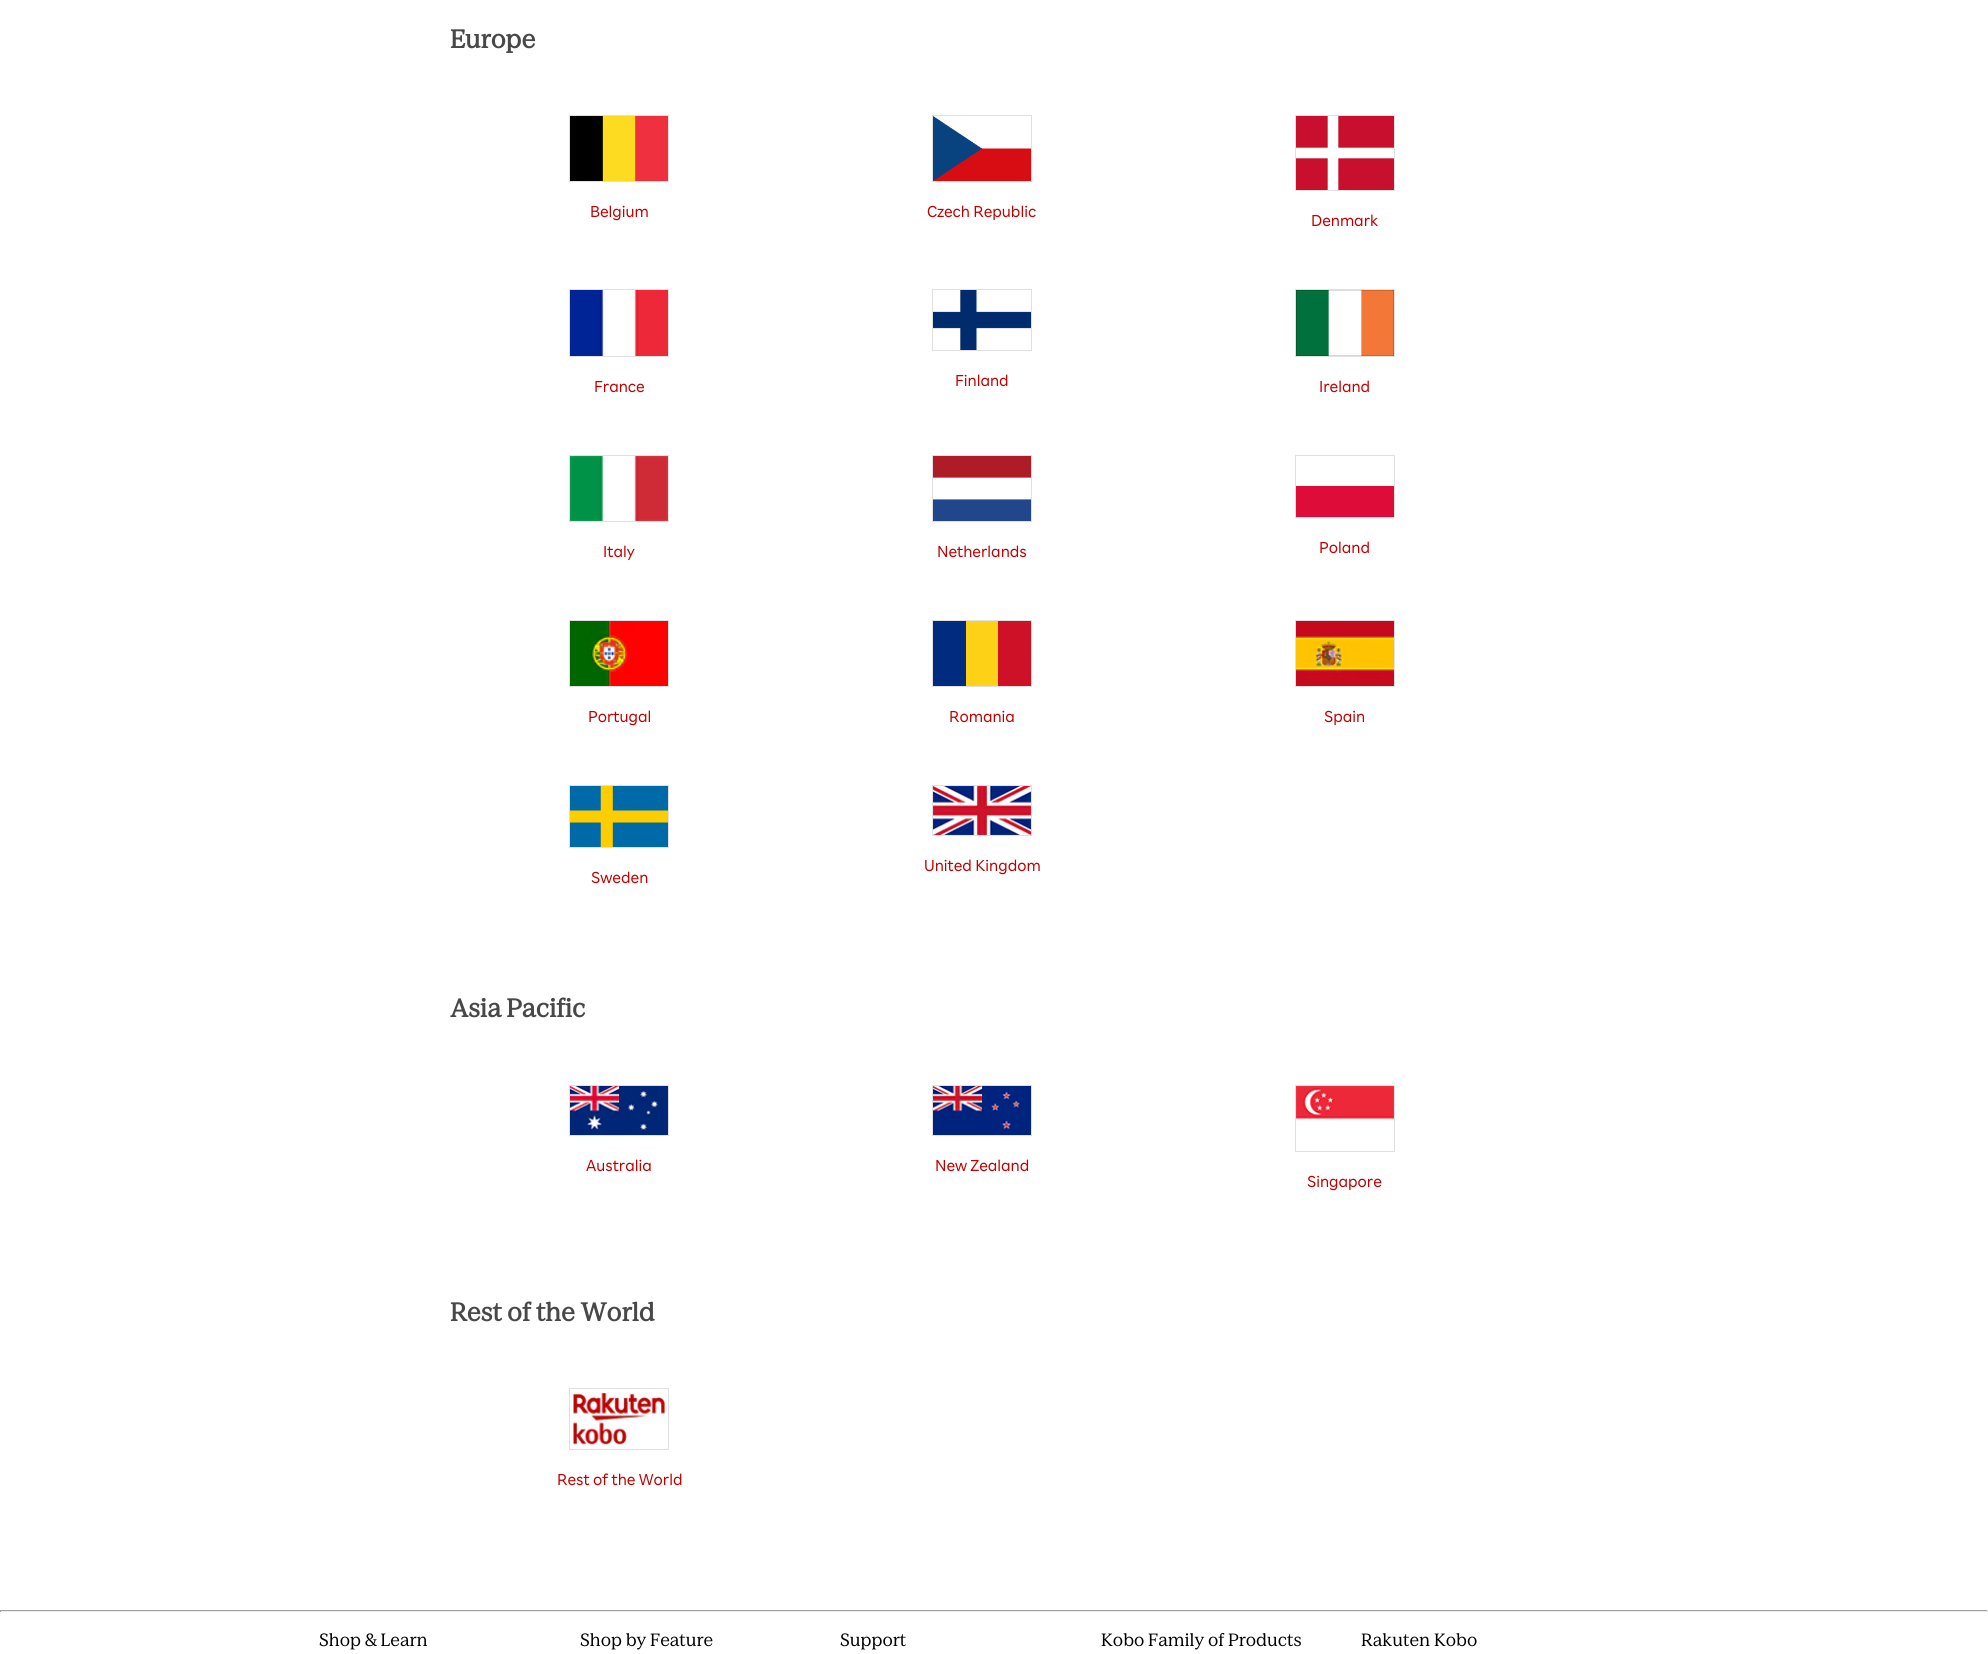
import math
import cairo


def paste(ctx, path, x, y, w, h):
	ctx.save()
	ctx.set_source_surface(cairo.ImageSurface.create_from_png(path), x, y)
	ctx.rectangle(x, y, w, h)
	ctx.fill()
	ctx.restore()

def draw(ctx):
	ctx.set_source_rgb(1, 1, 1)
	ctx.paint()
	ctx.select_font_face('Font', cairo.FONT_SLANT_NORMAL, cairo.FONT_WEIGHT_BOLD)
	ctx.set_font_size(26)
	ctx.set_source_rgb(0.282, 0.282, 0.282)
	ctx.move_to(450, 48)
	ctx.show_text('Europe')
	ctx.rectangle(569.5, 115.5, 99, 66)
	ctx.set_source_rgb(0.878, 0.878, 0.878)
	ctx.set_line_width(1)
	ctx.stroke()
	paste(ctx, 'media/1.png', 570, 116, 98, 65)
	ctx.select_font_face('Font')
	ctx.set_font_size(16)
	ctx.set_source_rgb(0.749, 0, 0)
	ctx.move_to(590, 217)
	ctx.show_text('Belgium')
	ctx.rectangle(932.5, 115.5, 99, 66)
	ctx.set_source_rgb(0.878, 0.878, 0.878)
	ctx.stroke()
	paste(ctx, 'media/2.png', 933, 116, 98, 65)
	ctx.set_source_rgb(0.749, 0, 0)
	ctx.move_to(927, 217)
	ctx.show_text('Czech Republic')
	ctx.rectangle(1295.5, 115.5, 99, 75)
	ctx.set_source_rgb(0.878, 0.878, 0.878)
	ctx.stroke()
	ctx.set_source_rgb(0.784, 0.063, 0.18)
	ctx.rectangle(1296, 116, 98, 74)
	ctx.fill()
	ctx.new_path()
	ctx.move_to(1296, 153)
	ctx.line_to(1394, 153)
	ctx.move_to(1333, 116)
	ctx.line_to(1333, 190)
	ctx.set_source_rgb(1, 1, 1)
	ctx.set_line_width(10.6)
	ctx.stroke()
	ctx.set_source_rgb(0.749, 0, 0)
	ctx.move_to(1311, 226)
	ctx.show_text('Denmark')
	ctx.rectangle(569.5, 289.5, 99, 67)
	ctx.set_source_rgb(0.878, 0.878, 0.878)
	ctx.set_line_width(1)
	ctx.stroke()
	paste(ctx, 'media/3.png', 570, 290, 98, 66)
	ctx.set_source_rgb(0.749, 0, 0)
	ctx.move_to(594, 392)
	ctx.show_text('France')
	ctx.rectangle(932.5, 289.5, 99, 61)
	ctx.set_source_rgb(0.878, 0.878, 0.878)
	ctx.stroke()
	paste(ctx, 'media/4.png', 933, 290, 98, 60)
	ctx.set_source_rgb(0.749, 0, 0)
	ctx.move_to(955, 386)
	ctx.show_text('Finland')
	ctx.rectangle(1295.5, 289.5, 99, 67)
	ctx.set_source_rgb(0.878, 0.878, 0.878)
	ctx.stroke()
	paste(ctx, 'media/5.png', 1296, 290, 98, 66)
	ctx.set_source_rgb(0.749, 0, 0)
	ctx.move_to(1319, 392)
	ctx.show_text('Ireland')
	ctx.rectangle(569.5, 455.5, 99, 66)
	ctx.set_source_rgb(0.878, 0.878, 0.878)
	ctx.stroke()
	paste(ctx, 'media/6.png', 570, 456, 98, 65)
	ctx.set_source_rgb(0.749, 0, 0)
	ctx.move_to(603, 557)
	ctx.show_text('Italy')
	ctx.rectangle(932.5, 455.5, 99, 66)
	ctx.set_source_rgb(0.878, 0.878, 0.878)
	ctx.stroke()
	paste(ctx, 'media/7.png', 933, 456, 98, 65)
	ctx.set_source_rgb(0.749, 0, 0)
	ctx.move_to(937, 557)
	ctx.show_text('Netherlands')
	ctx.rectangle(1295.5, 455.5, 99, 62)
	ctx.set_source_rgb(0.878, 0.878, 0.878)
	ctx.stroke()
	ctx.set_source_rgb(0.867, 0.047, 0.224)
	ctx.rectangle(1296, 486, 98, 31)
	ctx.fill()
	ctx.set_source_rgb(0.749, 0, 0)
	ctx.move_to(1319, 553)
	ctx.show_text('Poland')
	ctx.rectangle(569.5, 620.5, 99, 66)
	ctx.set_source_rgb(0.878, 0.878, 0.878)
	ctx.stroke()
	paste(ctx, 'media/8.png', 570, 621, 98, 65)
	ctx.set_source_rgb(0.749, 0, 0)
	ctx.move_to(588, 722)
	ctx.show_text('Portugal')
	ctx.rectangle(932.5, 620.5, 99, 66)
	ctx.set_source_rgb(0.878, 0.878, 0.878)
	ctx.stroke()
	ctx.set_source_rgb(0, 0.169, 0.498)
	ctx.rectangle(933, 621, 33, 65)
	ctx.fill()
	ctx.set_source_rgb(0.988, 0.82, 0.086)
	ctx.rectangle(966, 621, 32, 65)
	ctx.fill()
	ctx.set_source_rgb(0.808, 0.067, 0.149)
	ctx.rectangle(998, 621, 33, 65)
	ctx.fill()
	ctx.set_source_rgb(0.749, 0, 0)
	ctx.move_to(949, 722)
	ctx.show_text('Romania')
	ctx.rectangle(1295.5, 620.5, 99, 66)
	ctx.set_source_rgb(0.878, 0.878, 0.878)
	ctx.stroke()
	paste(ctx, 'media/9.png', 1296, 621, 98, 65)
	ctx.set_source_rgb(0.749, 0, 0)
	ctx.move_to(1324, 722)
	ctx.show_text('Spain')
	ctx.rectangle(932.5, 785.5, 99, 50)
	ctx.set_source_rgb(0.878, 0.878, 0.878)
	ctx.stroke()
	paste(ctx, 'media/10.png', 933, 786, 98, 49)
	ctx.set_source_rgb(0.749, 0, 0)
	ctx.move_to(924, 871)
	ctx.show_text('United Kingdom')
	ctx.rectangle(569.5, 785.5, 99, 62)
	ctx.set_source_rgb(0.878, 0.878, 0.878)
	ctx.stroke()
	paste(ctx, 'media/11.png', 570, 786, 98, 61)
	ctx.set_source_rgb(0.749, 0, 0)
	ctx.move_to(591, 883)
	ctx.show_text('Sweden')
	ctx.select_font_face('Font', cairo.FONT_SLANT_NORMAL, cairo.FONT_WEIGHT_BOLD)
	ctx.set_font_size(26)
	ctx.set_source_rgb(0.282, 0.282, 0.282)
	ctx.move_to(450, 1017)
	ctx.show_text('Asia Pacific')
	ctx.rectangle(569.5, 1085.5, 99, 50)
	ctx.set_source_rgb(0.878, 0.878, 0.878)
	ctx.stroke()
	paste(ctx, 'media/12.png', 570, 1086, 98, 49)
	ctx.select_font_face('Font')
	ctx.set_font_size(16)
	ctx.set_source_rgb(0.749, 0, 0)
	ctx.move_to(586, 1171)
	ctx.show_text('Australia')
	ctx.rectangle(932.5, 1085.5, 99, 50)
	ctx.set_source_rgb(0.878, 0.878, 0.878)
	ctx.stroke()
	paste(ctx, 'media/13.png', 933, 1086, 98, 49)
	ctx.set_source_rgb(0.749, 0, 0)
	ctx.move_to(935, 1171)
	ctx.show_text('New Zealand')
	ctx.rectangle(1295.5, 1085.5, 99, 66)
	ctx.set_source_rgb(0.878, 0.878, 0.878)
	ctx.stroke()
	paste(ctx, 'media/14.png', 1296, 1086, 98, 34)
	ctx.set_source_rgb(0.749, 0, 0)
	ctx.move_to(1307, 1187)
	ctx.show_text('Singapore')
	ctx.select_font_face('Font', cairo.FONT_SLANT_NORMAL, cairo.FONT_WEIGHT_BOLD)
	ctx.set_font_size(26)
	ctx.set_source_rgb(0.282, 0.282, 0.282)
	ctx.move_to(450, 1321)
	ctx.show_text('Rest of the World')
	ctx.rectangle(569.5, 1388.5, 99, 61)
	ctx.set_source_rgb(0.878, 0.878, 0.878)
	ctx.stroke()
	paste(ctx, 'media/15.png', 570, 1389, 98, 56)
	ctx.select_font_face('Font')
	ctx.set_font_size(16)
	ctx.set_source_rgb(0.749, 0, 0)
	ctx.move_to(557, 1485)
	ctx.show_text('Rest of the World')
	ctx.set_source_rgb(0.624, 0.624, 0.624)
	ctx.rectangle(0, 1610, 1988, 1)
	ctx.fill()
	ctx.set_source_rgb(0.933, 0.933, 0.933)
	ctx.rectangle(1987, 1610, 1, 2)
	ctx.rectangle(0, 1611, 1988, 1)
	ctx.fill()
	ctx.set_source_rgb(0.624, 0.624, 0.624)
	ctx.rectangle(0, 1610, 1, 2)
	ctx.fill()
	ctx.select_font_face('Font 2')
	ctx.set_font_size(18)
	ctx.set_source_rgb(0, 0, 0)
	for x, y, s in [
		(319, 1646, 'Shop & Learn'),
		(580, 1646, 'Shop by Feature'),
		(840, 1646, 'Support'),
		(1101, 1646, 'Kobo Family of Products'),
		(1361, 1646, 'Rakuten Kobo'),
	]:
		ctx.move_to(x, y)
		ctx.show_text(s)


surface = cairo.ImageSurface(cairo.FORMAT_RGB24, 1988, 1654)
ctx = cairo.Context(surface)
options = cairo.FontOptions()
options.set_hint_metrics(cairo.HINT_METRICS_OFF)
options.set_hint_style(cairo.HINT_STYLE_NONE)
ctx.set_font_options(options)
ctx.set_miter_limit(4)
draw(ctx)
surface.write_to_png('image.png')
